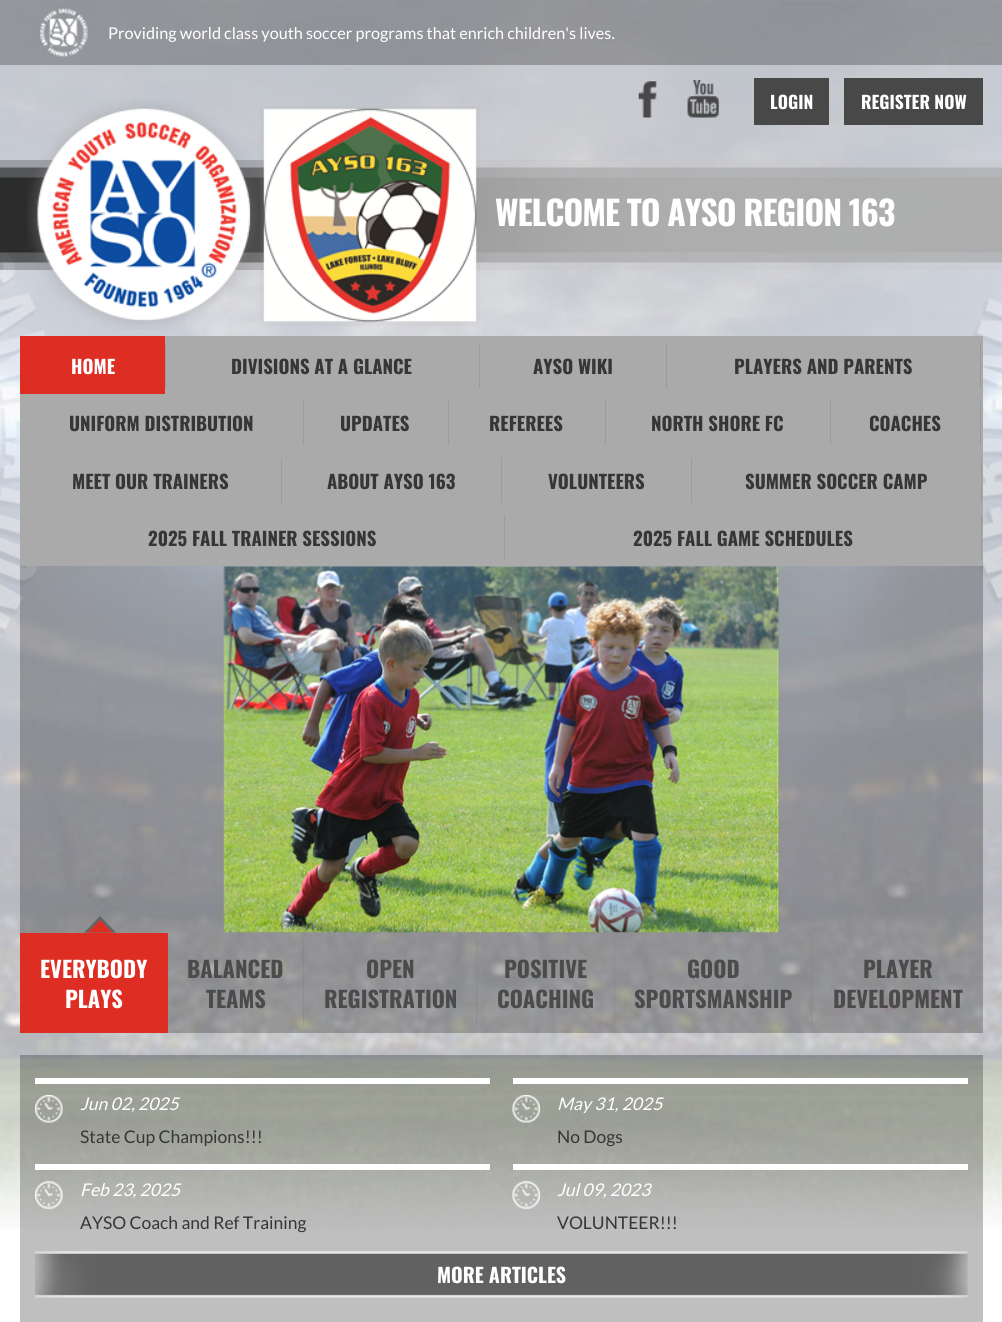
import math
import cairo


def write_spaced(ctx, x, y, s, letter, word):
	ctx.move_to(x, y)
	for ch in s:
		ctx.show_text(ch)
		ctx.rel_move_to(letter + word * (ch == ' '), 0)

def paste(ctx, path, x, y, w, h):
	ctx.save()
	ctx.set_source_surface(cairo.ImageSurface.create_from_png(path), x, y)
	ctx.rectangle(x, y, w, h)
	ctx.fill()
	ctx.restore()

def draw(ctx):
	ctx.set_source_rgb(1, 1, 1)
	ctx.paint()
	paste(ctx, 'media/1.png', 0, 0, 1002, 1229)
	ctx.set_source_rgba(0, 0, 0, 0.25)
	ctx.rectangle(0, 0, 1002, 65)
	ctx.fill()
	paste(ctx, 'media/2.png', 39, 8, 49, 49)
	ctx.select_font_face('Lato')
	ctx.set_font_size(16.25)
	ctx.set_source_rgb(1, 1, 1)
	ctx.move_to(108, 39)
	ctx.show_text('Providing world class youth soccer programs that enrich children\'s lives.')
	paste(ctx, 'media/3.png', 638, 81, 19, 37)
	paste(ctx, 'media/4.png', 687, 80, 32, 38)
	ctx.set_source_rgb(0.282, 0.282, 0.282)
	ctx.rectangle(754, 78, 75, 47)
	ctx.fill()
	ctx.select_font_face('Oswald', cairo.FONT_SLANT_NORMAL, cairo.FONT_WEIGHT_BOLD)
	ctx.set_font_size(17.5)
	ctx.set_source_rgb(1, 1, 1)
	ctx.move_to(770, 109)
	ctx.show_text('LOGIN')
	ctx.set_source_rgb(0.282, 0.282, 0.282)
	ctx.rectangle(844, 78, 139, 47)
	ctx.fill()
	ctx.set_source_rgb(1, 1, 1)
	ctx.move_to(861, 109)
	ctx.show_text('REGISTER NOW')
	paste(ctx, 'media/5.png', 0, 160, 1002, 110)
	paste(ctx, 'media/6.png', 27, 100, 231, 230)
	paste(ctx, 'media/7.png', 260, 106, 220, 220)
	ctx.set_font_size(33.75)
	write_spaced(ctx, 495, 226, 'WELCOME TO AYSO REGION 163', -1, 0)
	ctx.set_source_rgb(0.667, 0.667, 0.671)
	ctx.rectangle(20, 336, 963, 230)
	ctx.fill()
	ctx.set_source_rgb(0.871, 0.18, 0.141)
	ctx.rectangle(20, 336, 145, 58)
	ctx.fill()
	ctx.set_font_size(18.75)
	ctx.set_source_rgb(1, 1, 1)
	ctx.move_to(71, 374)
	ctx.show_text('HOME')
	ctx.set_source_rgb(0.608, 0.608, 0.608)
	ctx.rectangle(165, 343, 1, 45)
	ctx.fill()
	ctx.set_source_rgb(0.212, 0.212, 0.212)
	ctx.move_to(231, 374)
	ctx.show_text('DIVISIONS AT A GLANCE')
	ctx.set_source_rgb(0.608, 0.608, 0.608)
	ctx.rectangle(479, 343, 1, 45)
	ctx.fill()
	ctx.set_source_rgb(0.212, 0.212, 0.212)
	ctx.move_to(533, 374)
	ctx.show_text('AYSO WIKI')
	ctx.set_source_rgb(0.608, 0.608, 0.608)
	ctx.rectangle(666, 343, 1, 45)
	ctx.fill()
	ctx.set_source_rgb(0.212, 0.212, 0.212)
	ctx.move_to(734, 374)
	ctx.show_text('PLAYERS AND PARENTS')
	ctx.set_source_rgb(0.608, 0.608, 0.608)
	ctx.rectangle(980, 343, 1, 45)
	ctx.fill()
	ctx.set_source_rgb(0.212, 0.212, 0.212)
	ctx.move_to(69, 431)
	ctx.show_text('UNIFORM DISTRIBUTION')
	ctx.set_source_rgb(0.608, 0.608, 0.608)
	ctx.rectangle(303, 400, 1, 45)
	ctx.fill()
	ctx.set_source_rgb(0.212, 0.212, 0.212)
	ctx.move_to(340, 431)
	ctx.show_text('UPDATES')
	ctx.set_source_rgb(0.608, 0.608, 0.608)
	ctx.rectangle(448, 400, 1, 45)
	ctx.fill()
	ctx.set_source_rgb(0.212, 0.212, 0.212)
	ctx.move_to(489, 431)
	ctx.show_text('REFEREES')
	ctx.set_source_rgb(0.608, 0.608, 0.608)
	ctx.rectangle(605, 400, 1, 45)
	ctx.fill()
	ctx.set_source_rgb(0.212, 0.212, 0.212)
	ctx.move_to(651, 431)
	ctx.show_text('NORTH SHORE FC')
	ctx.set_source_rgb(0.608, 0.608, 0.608)
	ctx.rectangle(830, 400, 1, 45)
	ctx.fill()
	ctx.set_source_rgb(0.212, 0.212, 0.212)
	ctx.move_to(869, 431)
	ctx.show_text('COACHES')
	ctx.set_source_rgb(0.608, 0.608, 0.608)
	ctx.rectangle(980, 400, 1, 45)
	ctx.fill()
	ctx.set_source_rgb(0.212, 0.212, 0.212)
	ctx.move_to(72, 489)
	ctx.show_text('MEET OUR TRAINERS')
	ctx.set_source_rgb(0.608, 0.608, 0.608)
	ctx.rectangle(281, 458, 1, 45)
	ctx.fill()
	ctx.set_source_rgb(0.212, 0.212, 0.212)
	ctx.move_to(327, 489)
	ctx.show_text('ABOUT AYSO 163')
	ctx.set_source_rgb(0.608, 0.608, 0.608)
	ctx.rectangle(501, 458, 1, 45)
	ctx.fill()
	ctx.set_source_rgb(0.212, 0.212, 0.212)
	ctx.move_to(548, 489)
	ctx.show_text('VOLUNTEERS')
	ctx.set_source_rgb(0.608, 0.608, 0.608)
	ctx.rectangle(691, 458, 1, 45)
	ctx.fill()
	ctx.set_source_rgb(0.212, 0.212, 0.212)
	ctx.move_to(745, 489)
	ctx.show_text('SUMMER SOCCER CAMP')
	ctx.set_source_rgb(0.608, 0.608, 0.608)
	ctx.rectangle(981, 458, 1, 45)
	ctx.fill()
	ctx.set_source_rgb(0.212, 0.212, 0.212)
	ctx.move_to(148, 546)
	ctx.show_text('2025 FALL TRAINER SESSIONS')
	ctx.set_source_rgb(0.608, 0.608, 0.608)
	ctx.rectangle(504, 515, 1, 45)
	ctx.fill()
	ctx.set_source_rgb(0.212, 0.212, 0.212)
	ctx.move_to(633, 546)
	ctx.show_text('2025 FALL GAME SCHEDULES')
	ctx.set_source_rgb(0.608, 0.608, 0.608)
	ctx.rectangle(981, 515, 1, 45)
	ctx.fill()
	ctx.set_source_rgba(0, 0, 0, 0.25)
	ctx.rectangle(20, 566, 963, 467)
	ctx.fill()
	paste(ctx, 'media/8.png', 223, 566, 556, 367)
	ctx.set_source_rgb(0.871, 0.18, 0.141)
	ctx.rectangle(20, 933, 148, 100)
	ctx.fill()
	ctx.set_source_rgba(0, 0, 0, 0.3)
	ctx.new_path()
	ctx.move_to(116, 932.5)
	ctx.line_to(84, 932.5)
	ctx.line_to(100, 916)
	ctx.close_path()
	ctx.fill()
	ctx.set_source_rgb(0.871, 0.18, 0.141)
	ctx.new_path()
	ctx.move_to(112.5, 932.5)
	ctx.line_to(87.5, 932.5)
	ctx.line_to(100, 920)
	ctx.close_path()
	ctx.fill()
	ctx.set_font_size(22.5)
	ctx.set_source_rgb(1, 1, 1)
	ctx.move_to(40, 978)
	ctx.show_text('EVERYBODY')
	ctx.move_to(65, 1008)
	ctx.show_text('PLAYS')
	ctx.set_source_rgb(0.294, 0.294, 0.294)
	ctx.move_to(187, 978)
	ctx.show_text('BALANCED')
	ctx.set_source_rgba(0.478, 0.478, 0.478, 0.3)
	ctx.rectangle(303, 940, 1, 85)
	ctx.fill()
	ctx.set_source_rgb(0.294, 0.294, 0.294)
	ctx.move_to(206, 1008)
	ctx.show_text('TEAMS')
	ctx.move_to(366, 978)
	ctx.show_text('OPEN')
	ctx.set_source_rgba(0.478, 0.478, 0.478, 0.3)
	ctx.rectangle(476, 940, 1, 85)
	ctx.fill()
	ctx.set_source_rgb(0.294, 0.294, 0.294)
	ctx.move_to(324, 1008)
	ctx.show_text('REGISTRATION')
	ctx.move_to(504, 978)
	ctx.show_text('POSITIVE')
	ctx.set_source_rgba(0.478, 0.478, 0.478, 0.3)
	ctx.rectangle(614, 940, 1, 85)
	ctx.fill()
	ctx.set_source_rgb(0.294, 0.294, 0.294)
	ctx.move_to(497, 1008)
	ctx.show_text('COACHING')
	ctx.move_to(687, 978)
	ctx.show_text('GOOD')
	ctx.set_source_rgba(0.478, 0.478, 0.478, 0.3)
	ctx.rectangle(811, 940, 1, 85)
	ctx.fill()
	ctx.set_source_rgb(0.294, 0.294, 0.294)
	for x, y, s in [
		(634, 1008, 'SPORTSMANSHIP'),
		(863, 978, 'PLAYER'),
		(833, 1008, 'DEVELOPMENT'),
	]:
		ctx.move_to(x, y)
		ctx.show_text(s)
	ctx.set_source_rgba(0, 0, 0, 0.25)
	ctx.rectangle(20, 1055, 963, 267)
	ctx.fill()
	ctx.set_source_rgb(1, 1, 1)
	ctx.rectangle(35, 1078, 455, 6)
	ctx.fill()
	paste(ctx, 'media/9.png', 35, 1095, 28, 28)
	ctx.select_font_face('Lato', cairo.FONT_SLANT_ITALIC)
	ctx.set_font_size(17.5)
	ctx.move_to(80, 1110)
	ctx.show_text('Jun 02, 2025')
	ctx.select_font_face('Lato')
	ctx.set_source_rgb(0.212, 0.212, 0.212)
	ctx.move_to(80, 1143)
	ctx.show_text('State Cup Champions!!!')
	ctx.set_source_rgb(1, 1, 1)
	ctx.rectangle(513, 1078, 455, 6)
	ctx.fill()
	paste(ctx, 'media/10.png', 512, 1095, 28, 28)
	ctx.select_font_face('Lato', cairo.FONT_SLANT_ITALIC)
	ctx.move_to(557, 1110)
	ctx.show_text('May 31, 2025')
	ctx.select_font_face('Lato')
	ctx.set_source_rgb(0.212, 0.212, 0.212)
	ctx.move_to(557, 1143)
	ctx.show_text('No Dogs')
	ctx.set_source_rgb(1, 1, 1)
	ctx.rectangle(35, 1164, 455, 6)
	ctx.fill()
	paste(ctx, 'media/11.png', 35, 1181, 28, 28)
	ctx.select_font_face('Lato', cairo.FONT_SLANT_ITALIC)
	ctx.move_to(80, 1196)
	ctx.show_text('Feb 23, 2025')
	ctx.select_font_face('Lato')
	ctx.set_source_rgb(0.212, 0.212, 0.212)
	ctx.move_to(80, 1229)
	ctx.show_text('AYSO Coach and Ref Training')
	ctx.set_source_rgb(1, 1, 1)
	ctx.rectangle(513, 1164, 455, 6)
	ctx.fill()
	paste(ctx, 'media/12.png', 512, 1181, 28, 28)
	ctx.select_font_face('Lato', cairo.FONT_SLANT_ITALIC)
	ctx.move_to(557, 1196)
	ctx.show_text('Jul 09, 2023')
	ctx.select_font_face('Lato')
	ctx.set_source_rgb(0.212, 0.212, 0.212)
	ctx.move_to(557, 1229)
	ctx.show_text('VOLUNTEER!!!')
	paste(ctx, 'media/13.png', 35, 1251, 933, 47)
	ctx.select_font_face('Oswald', cairo.FONT_SLANT_NORMAL, cairo.FONT_WEIGHT_BOLD)
	ctx.set_font_size(20)
	ctx.set_source_rgb(1, 1, 1)
	ctx.move_to(437, 1283)
	ctx.show_text('MORE ARTICLES')


surface = cairo.ImageSurface(cairo.FORMAT_RGB24, 1002, 1322)
ctx = cairo.Context(surface)
options = cairo.FontOptions()
options.set_hint_metrics(cairo.HINT_METRICS_OFF)
options.set_hint_style(cairo.HINT_STYLE_NONE)
ctx.set_font_options(options)
ctx.set_miter_limit(4)
draw(ctx)
surface.write_to_png('image.png')
